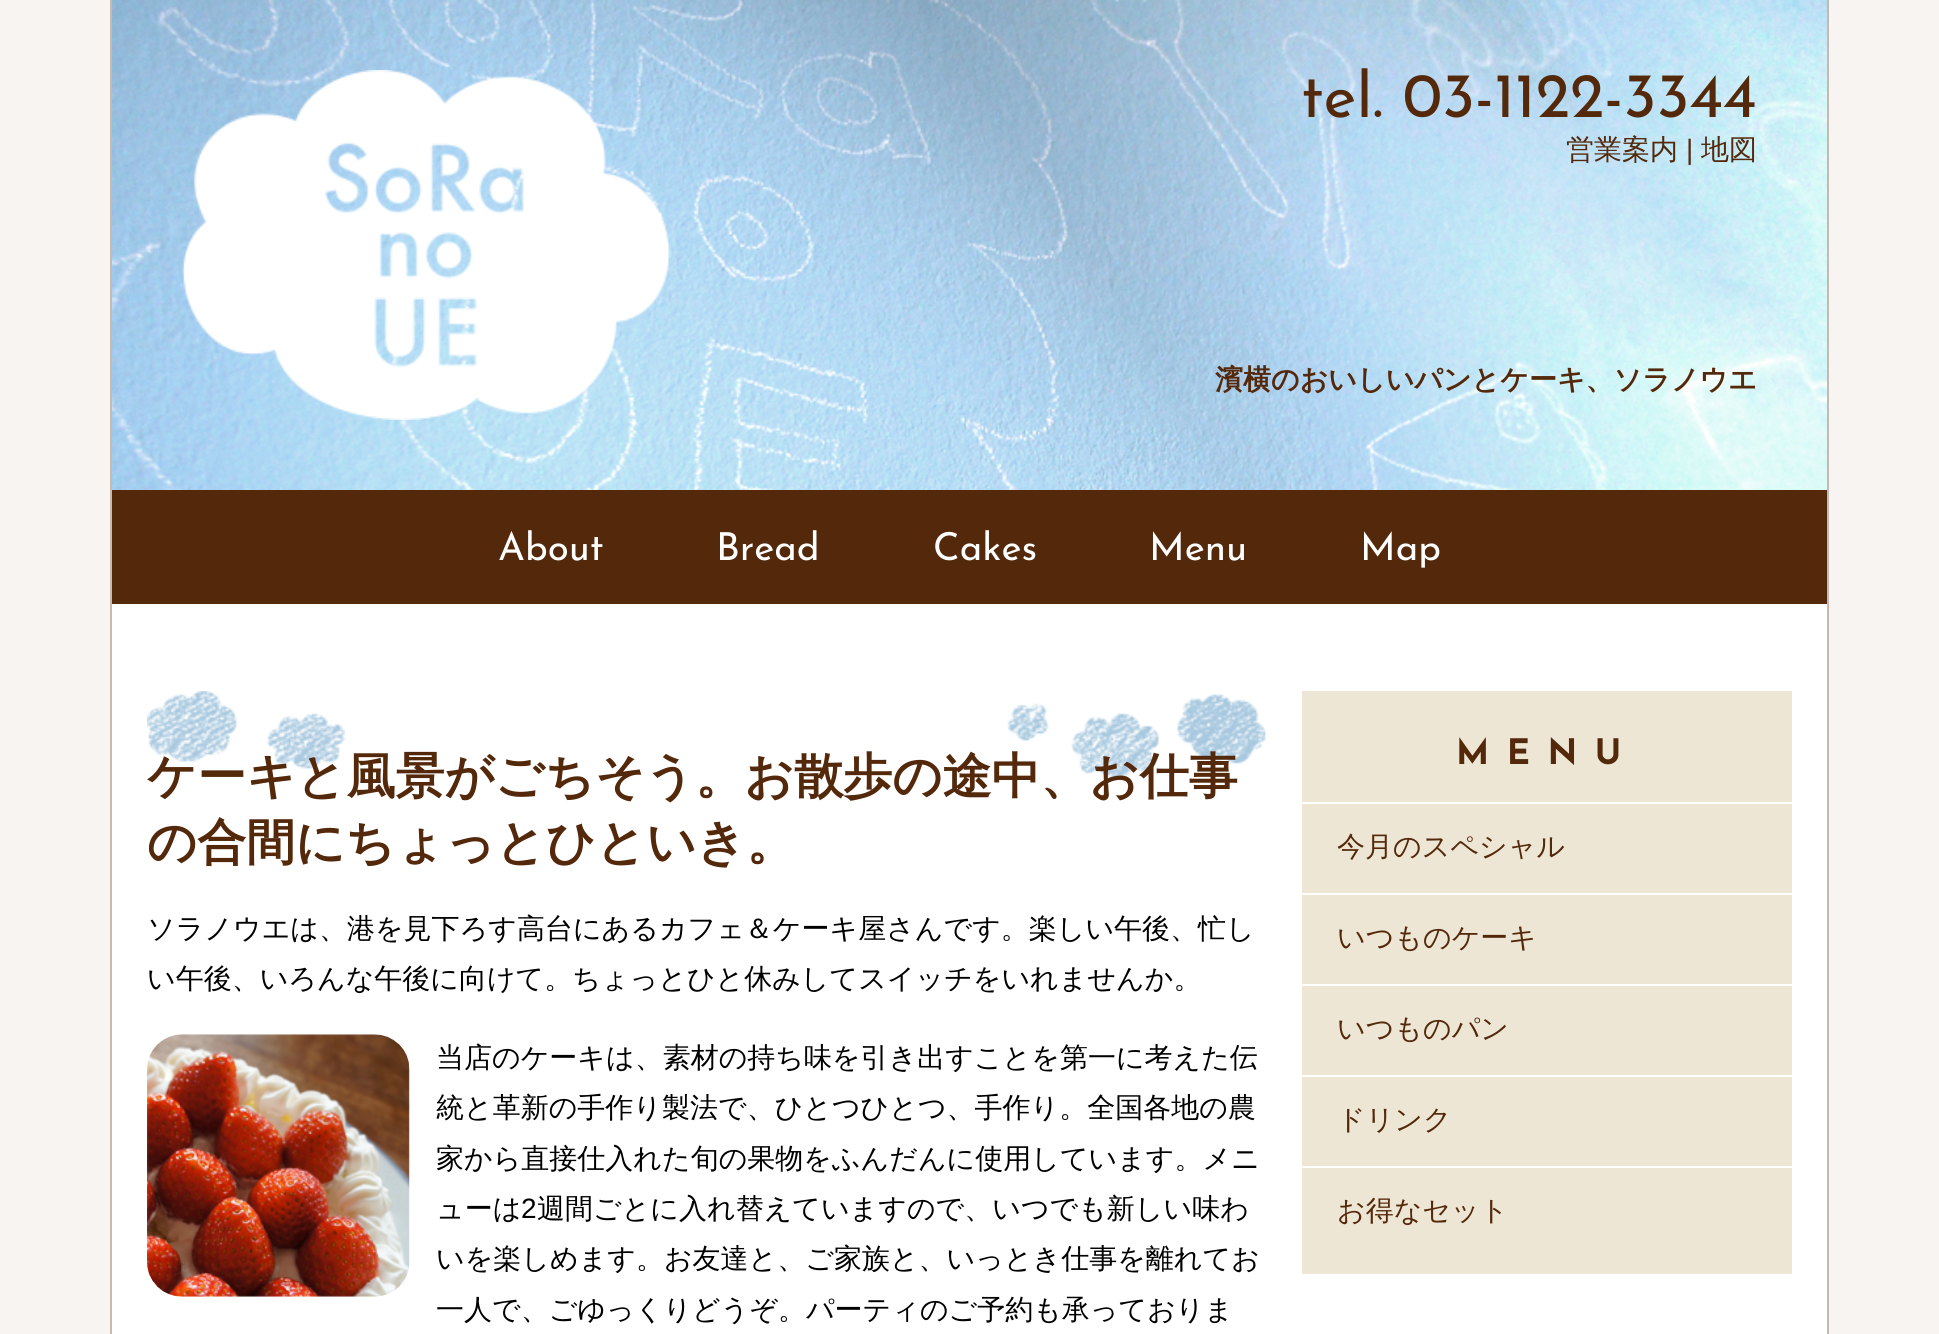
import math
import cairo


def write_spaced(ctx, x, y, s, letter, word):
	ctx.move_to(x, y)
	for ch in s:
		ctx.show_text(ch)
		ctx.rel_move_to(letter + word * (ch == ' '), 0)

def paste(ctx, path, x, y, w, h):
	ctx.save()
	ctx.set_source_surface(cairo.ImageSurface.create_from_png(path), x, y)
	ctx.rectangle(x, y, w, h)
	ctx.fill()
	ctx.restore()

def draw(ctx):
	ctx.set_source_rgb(0.965, 0.957, 0.949)
	ctx.paint()
	ctx.set_source_rgb(1, 1, 1)
	ctx.rectangle(112, 604, 1715, 730)
	ctx.fill()
	ctx.set_source_rgb(0.765, 0.729, 0.698)
	ctx.rectangle(1827, 0, 2, 1334)
	ctx.rectangle(110, 0, 2, 1334)
	ctx.fill()
	paste(ctx, 'media/1.png', 112, 0, 1715, 490)
	paste(ctx, 'media/2.png', 182, 70, 489, 350)
	ctx.select_font_face('Josefin Sans')
	ctx.set_font_size(63)
	ctx.set_source_rgb(0.325, 0.157, 0.043)
	ctx.move_to(1301, 117)
	ctx.show_text('tel. 03-1122-3344')
	ctx.select_font_face('WenQuanYi Zen Hei Medium')
	ctx.set_font_size(28)
	ctx.move_to(1566, 159)
	ctx.show_text('営業案内')
	ctx.select_font_face('Liberation Sans')
	ctx.move_to(1686, 159)
	ctx.show_text('|')
	ctx.select_font_face('WenQuanYi Zen Hei Medium')
	ctx.move_to(1701, 159)
	ctx.show_text('地図')
	ctx.select_font_face('WenQuanYi Zen Hei', cairo.FONT_SLANT_NORMAL, cairo.FONT_WEIGHT_BOLD)
	ctx.move_to(1215, 389)
	ctx.show_text('濱横のおいしいパンとケーキ、ソラノウエ')
	ctx.rectangle(112, 490, 1715, 114)
	ctx.fill()
	ctx.select_font_face('Josefin Sans')
	ctx.set_font_size(38.5)
	ctx.set_source_rgb(1, 1, 1)
	for x, y, s in [
		(498, 560, 'About'),
		(716, 560, 'Bread'),
		(933, 560, 'Cakes'),
		(1149, 560, 'Menu'),
		(1360, 560, 'Map'),
	]:
		ctx.move_to(x, y)
		ctx.show_text(s)
	paste(ctx, 'media/3.png', 147, 691, 1119, 88)
	ctx.select_font_face('WenQuanYi Zen Hei', cairo.FONT_SLANT_NORMAL, cairo.FONT_WEIGHT_BOLD)
	ctx.set_font_size(49)
	ctx.set_source_rgb(0.325, 0.157, 0.043)
	ctx.move_to(147, 793)
	ctx.show_text('ケーキと風景がごちそう。お散歩の途中、お仕事')
	ctx.move_to(147, 859)
	ctx.show_text('の合間にちょっとひといき。')
	ctx.select_font_face('WenQuanYi Zen Hei Medium')
	ctx.set_font_size(28)
	ctx.set_source_rgb(0, 0, 0)
	ctx.move_to(147, 938)
	ctx.show_text('ソラノウエは、港を見下ろす高台にあるカフェ＆ケーキ屋さんです。楽しい午後、忙し')
	ctx.move_to(147, 988)
	ctx.show_text('い午後、いろんな午後に向けて。ちょっとひと休みしてスイッチをいれませんか。')
	paste(ctx, 'media/4.png', 147, 1034, 263, 263)
	for x, y, s in [
		(436, 1067, '当店のケーキは、素材の持ち味を引き出すことを第一に考えた伝'),
		(436, 1117, '統と革新の手作り製法で、ひとつひとつ、手作り。全国各地の農'),
		(436, 1168, '家から直接仕入れた旬の果物をふんだんに使用しています。メニ'),
		(436, 1218, 'ューは'),
	]:
		ctx.move_to(x, y)
		ctx.show_text(s)
	ctx.select_font_face('Liberation Sans')
	ctx.move_to(521, 1218)
	ctx.show_text('2')
	ctx.select_font_face('WenQuanYi Zen Hei Medium')
	for x, y, s in [
		(537, 1218, '週間ごとに入れ替えていますので、いつでも新しい味わ'),
		(436, 1268, 'いを楽しめます。お友達と、ご家族と、いっとき仕事を離れてお'),
		(436, 1319, '一人で、ごゆっくりどうぞ。パーティのご予約も承っておりま'),
	]:
		ctx.move_to(x, y)
		ctx.show_text(s)
	ctx.set_source_rgb(0.929, 0.902, 0.835)
	ctx.rectangle(1302, 691, 490, 583)
	ctx.fill()
	ctx.select_font_face('Josefin Sans', cairo.FONT_SLANT_NORMAL, cairo.FONT_WEIGHT_BOLD)
	ctx.set_font_size(35)
	ctx.set_source_rgb(0.325, 0.157, 0.043)
	write_spaced(ctx, 1456, 764, 'MENU', 17.5, 0)
	ctx.set_source_rgb(1, 1, 1)
	ctx.rectangle(1302, 802, 490, 2)
	ctx.fill()
	ctx.select_font_face('WenQuanYi Zen Hei Medium')
	ctx.set_font_size(28)
	ctx.set_source_rgb(0.325, 0.157, 0.043)
	ctx.move_to(1337, 856)
	ctx.show_text('今月のスペシャル')
	ctx.set_source_rgb(1, 1, 1)
	ctx.rectangle(1302, 893, 490, 2)
	ctx.fill()
	ctx.set_source_rgb(0.325, 0.157, 0.043)
	ctx.move_to(1337, 947)
	ctx.show_text('いつものケーキ')
	ctx.set_source_rgb(1, 1, 1)
	ctx.rectangle(1302, 984, 490, 2)
	ctx.fill()
	ctx.set_source_rgb(0.325, 0.157, 0.043)
	ctx.move_to(1337, 1038)
	ctx.show_text('いつものパン')
	ctx.set_source_rgb(1, 1, 1)
	ctx.rectangle(1302, 1075, 490, 2)
	ctx.fill()
	ctx.set_source_rgb(0.325, 0.157, 0.043)
	ctx.move_to(1337, 1129)
	ctx.show_text('ドリンク')
	ctx.set_source_rgb(1, 1, 1)
	ctx.rectangle(1302, 1166, 490, 2)
	ctx.fill()
	ctx.set_source_rgb(0.325, 0.157, 0.043)
	ctx.move_to(1337, 1220)
	ctx.show_text('お得なセット')


surface = cairo.ImageSurface(cairo.FORMAT_RGB24, 1939, 1334)
ctx = cairo.Context(surface)
options = cairo.FontOptions()
options.set_hint_metrics(cairo.HINT_METRICS_OFF)
options.set_hint_style(cairo.HINT_STYLE_NONE)
ctx.set_font_options(options)
ctx.set_miter_limit(4)
draw(ctx)
surface.write_to_png('image.png')
